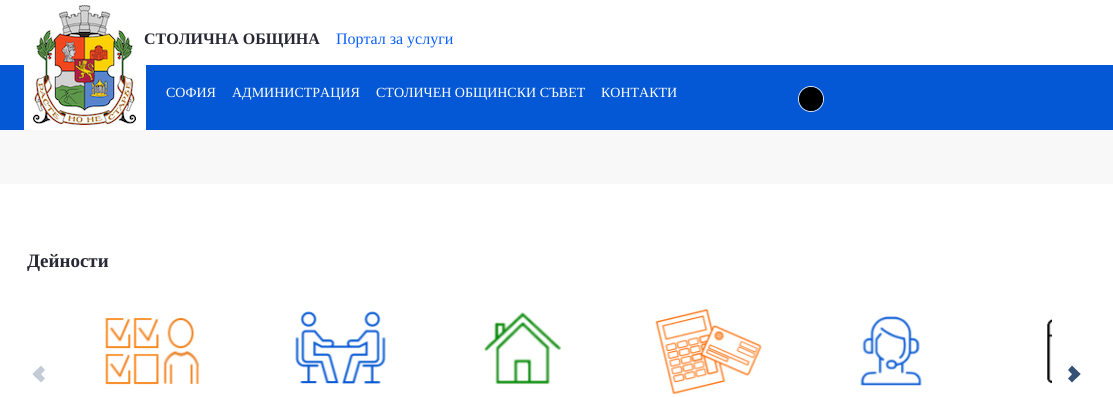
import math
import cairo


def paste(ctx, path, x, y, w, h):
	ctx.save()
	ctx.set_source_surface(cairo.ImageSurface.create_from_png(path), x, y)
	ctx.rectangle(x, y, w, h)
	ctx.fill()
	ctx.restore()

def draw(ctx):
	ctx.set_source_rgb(1, 1, 1)
	ctx.paint()
	ctx.set_source_rgb(0.016, 0.345, 0.835)
	ctx.rectangle(0, 65, 1113, 65)
	ctx.fill()
	paste(ctx, 'media/1.png', 24, 5, 122, 125)
	ctx.select_font_face('Liberation Serif', cairo.FONT_SLANT_NORMAL, cairo.FONT_WEIGHT_BOLD)
	ctx.set_font_size(16)
	ctx.set_source_rgb(0.153, 0.157, 0.2)
	ctx.move_to(144, 44)
	ctx.show_text('СТОЛИЧНА ОБЩИНА')
	ctx.select_font_face('Liberation Serif')
	ctx.set_source_rgb(0.043, 0.373, 1)
	ctx.move_to(336, 44)
	ctx.show_text('Портал за услуги')
	ctx.new_path()
	ctx.arc(811, 99, 12.5, 0, 2 * math.pi)
	ctx.set_source_rgb(0.906, 0.906, 0.929)
	ctx.set_line_width(1)
	ctx.stroke()
	ctx.set_source_rgb(0, 0, 0)
	ctx.arc(811, 99, 12, 0, 2 * math.pi)
	ctx.fill()
	ctx.set_font_size(14)
	ctx.set_source_rgb(1, 1, 1)
	for x, y, s in [
		(166, 97, 'СОФИЯ'),
		(232, 97, 'АДМИНИСТРАЦИЯ'),
		(376, 97, 'СТОЛИЧЕН ОБЩИНСКИ СЪВЕТ'),
		(601, 97, 'КОНТАКТИ'),
	]:
		ctx.move_to(x, y)
		ctx.show_text(s)
	ctx.set_source_rgb(0.969, 0.969, 0.973)
	ctx.rectangle(0, 130, 1113, 54)
	ctx.fill()
	ctx.select_font_face('Liberation Serif', cairo.FONT_SLANT_NORMAL, cairo.FONT_WEIGHT_BOLD)
	ctx.set_font_size(19)
	ctx.set_source_rgb(0.153, 0.157, 0.2)
	ctx.move_to(27, 267)
	ctx.show_text('Дейности')
	ctx.set_source_rgb(0.761, 0.796, 0.839)
	ctx.new_path()
	ctx.move_to(32.5, 374)
	ctx.line_to(41, 365.5)
	ctx.line_to(45, 370)
	ctx.line_to(37, 378.5)
	ctx.close_path()
	ctx.fill()
	ctx.new_path()
	ctx.move_to(32.5, 374)
	ctx.line_to(37, 370)
	ctx.line_to(45, 378.5)
	ctx.line_to(41, 382.5)
	ctx.close_path()
	ctx.fill()
	paste(ctx, 'media/2.png', 105, 318, 95, 67)
	paste(ctx, 'media/3.png', 295, 311, 91, 73)
	paste(ctx, 'media/4.png', 484, 312, 78, 73)
	paste(ctx, 'media/5.png', 655, 309, 107, 86)
	paste(ctx, 'media/6.png', 860, 316, 62, 70)
	paste(ctx, 'media/7.png', 1047, 319, 5, 65)
	ctx.set_source_rgb(0.204, 0.314, 0.459)
	ctx.new_path()
	ctx.move_to(1080.5, 374)
	ctx.line_to(1072, 382.5)
	ctx.line_to(1068, 378.5)
	ctx.line_to(1076, 370)
	ctx.close_path()
	ctx.fill()
	ctx.new_path()
	ctx.move_to(1080.5, 374)
	ctx.line_to(1076, 378.5)
	ctx.line_to(1068, 370)
	ctx.line_to(1072, 365.5)
	ctx.close_path()
	ctx.fill()


surface = cairo.ImageSurface(cairo.FORMAT_RGB24, 1113, 397)
ctx = cairo.Context(surface)
options = cairo.FontOptions()
options.set_hint_metrics(cairo.HINT_METRICS_OFF)
options.set_hint_style(cairo.HINT_STYLE_NONE)
ctx.set_font_options(options)
ctx.set_miter_limit(4)
draw(ctx)
surface.write_to_png('image.png')
